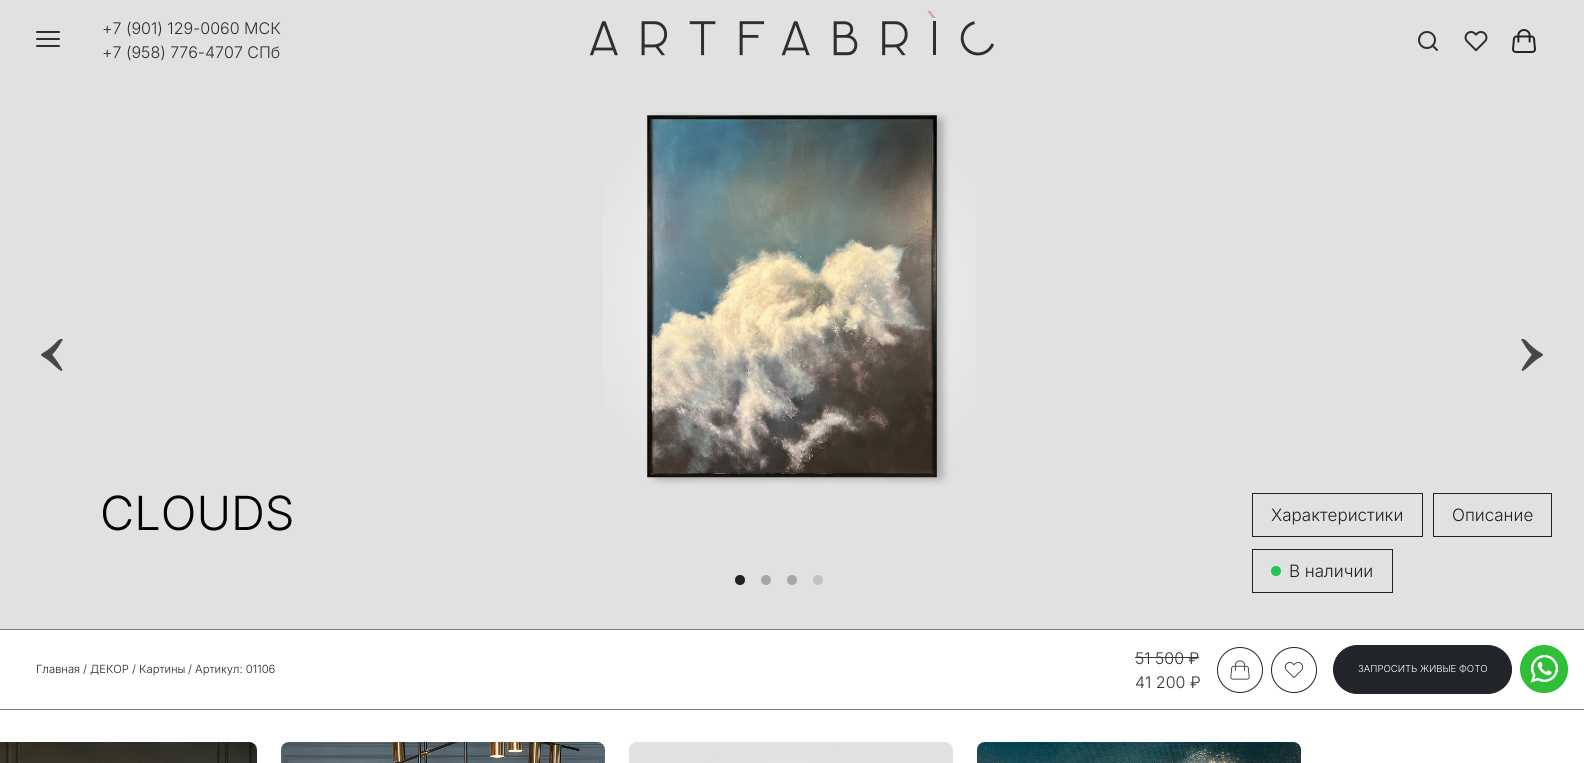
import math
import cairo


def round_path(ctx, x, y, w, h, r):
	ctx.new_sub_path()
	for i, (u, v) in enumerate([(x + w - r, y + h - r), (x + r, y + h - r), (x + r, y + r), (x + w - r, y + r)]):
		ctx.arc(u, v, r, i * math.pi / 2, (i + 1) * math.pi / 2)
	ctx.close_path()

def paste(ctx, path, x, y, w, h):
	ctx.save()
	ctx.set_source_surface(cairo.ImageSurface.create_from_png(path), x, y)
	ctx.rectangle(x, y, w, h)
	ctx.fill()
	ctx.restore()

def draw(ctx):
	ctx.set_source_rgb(1, 1, 1)
	ctx.paint()
	ctx.set_source_rgb(0.882, 0.882, 0.882)
	ctx.rectangle(0, 0, 1584, 629)
	ctx.fill()
	ctx.set_source_rgb(0.176, 0.18, 0.176)
	round_path(ctx, 36, 31, 24, 2, 1)
	ctx.fill()
	round_path(ctx, 36, 38, 24, 2, 1)
	ctx.fill()
	round_path(ctx, 36, 45, 24, 2, 1)
	ctx.fill()
	ctx.select_font_face('Inter Light')
	ctx.set_font_size(16)
	ctx.move_to(102, 34)
	ctx.show_text('+7 (901) 129-0060 МСК')
	ctx.move_to(102, 58)
	ctx.show_text('+7 (958) 776-4707 СПб')
	paste(ctx, 'media/1.png', 589, 10, 405, 46)
	ctx.arc(1427, 40, 8, 0, 2 * math.pi)
	ctx.stroke()
	ctx.new_path()
	ctx.move_to(1437, 50)
	ctx.line_to(1432.5, 45.5)
	ctx.set_line_cap(cairo.LINE_CAP_ROUND)
	ctx.set_line_join(cairo.LINE_JOIN_ROUND)
	ctx.stroke()
	paste(ctx, 'media/2.png', 1464, 31, 24, 21)
	paste(ctx, 'media/3.png', 1512, 29, 24, 24)
	paste(ctx, 'media/4.png', 41, 339, 22, 32)
	paste(ctx, 'media/5.png', 1521, 339, 22, 32)
	paste(ctx, 'media/6.png', 603, 112, 373, 374)
	ctx.set_font_size(47)
	ctx.set_source_rgb(0, 0, 0)
	ctx.move_to(100, 530)
	ctx.show_text('CLOUDS')
	ctx.rectangle(1252.5, 493.5, 170, 43)
	ctx.set_source_rgb(0.129, 0.129, 0.129)
	ctx.set_line_width(1)
	ctx.set_line_cap(cairo.LINE_CAP_BUTT)
	ctx.set_line_join(cairo.LINE_JOIN_MITER)
	ctx.stroke()
	ctx.set_font_size(17)
	ctx.move_to(1271, 521)
	ctx.show_text('Характеристики')
	ctx.rectangle(1433.5, 493.5, 118, 43)
	ctx.stroke()
	ctx.move_to(1452, 521)
	ctx.show_text('Описание')
	ctx.rectangle(1252.5, 549.5, 140, 43)
	ctx.stroke()
	ctx.set_source_rgb(0.137, 0.773, 0.322)
	ctx.arc(1276, 571, 5, 0, 2 * math.pi)
	ctx.fill()
	ctx.set_source_rgb(0.129, 0.129, 0.129)
	ctx.move_to(1289, 577)
	ctx.show_text('В наличии')
	ctx.set_source_rgb(0.133, 0.133, 0.133)
	ctx.new_path()
	ctx.arc(740, 580, 5, 0, 2 * math.pi)
	ctx.fill()
	ctx.set_source_rgb(0.655, 0.655, 0.655)
	ctx.arc(766, 580, 5, 0, 2 * math.pi)
	ctx.fill()
	ctx.arc(792, 580, 5, 0, 2 * math.pi)
	ctx.fill()
	ctx.set_source_rgb(0.757, 0.757, 0.757)
	ctx.arc(818, 580, 5, 0, 2 * math.pi)
	ctx.fill()
	ctx.set_source_rgb(0.49, 0.49, 0.49)
	ctx.rectangle(0, 629, 1584, 1)
	ctx.fill()
	ctx.rectangle(0, 709, 1584, 1)
	ctx.fill()
	ctx.set_font_size(11.25)
	ctx.set_source_rgb(0.129, 0.145, 0.161)
	for x, y, s in [
		(36, 673, 'Главная'),
		(83, 673, '/ ДЕКОР'),
		(132, 673, '/ Картины'),
		(188, 673, '/ Артикул: 01106'),
	]:
		ctx.move_to(x, y)
		ctx.show_text(s)
	ctx.set_font_size(16)
	ctx.set_source_rgb(0.2, 0.2, 0.2)
	ctx.move_to(1135, 664)
	ctx.show_text('51 500 ₽')
	ctx.rectangle(1135, 657, 64, 1)
	ctx.fill()
	ctx.move_to(1135, 688)
	ctx.show_text('41 200 ₽')
	ctx.new_path()
	ctx.arc(1240, 670, 22.5, 0, 2 * math.pi)
	ctx.set_source_rgb(0.129, 0.137, 0.161)
	ctx.stroke()
	paste(ctx, 'media/7.png', 1230, 660, 20, 20)
	ctx.arc(1294, 670, 22.5, 0, 2 * math.pi)
	ctx.stroke()
	paste(ctx, 'media/8.png', 1284, 662, 20, 16)
	ctx.set_source_rgb(0.129, 0.145, 0.161)
	round_path(ctx, 1333.5, 645.5, 178, 48, 24)
	ctx.fill_preserve()
	ctx.stroke()
	ctx.set_font_size(9.6)
	ctx.set_source_rgb(1, 1, 1)
	ctx.move_to(1358, 672)
	ctx.show_text('ЗАПРОСИТЬ ЖИВЫЕ ФОТО')
	paste(ctx, 'media/9.png', 0, 742, 257, 21)
	paste(ctx, 'media/10.png', 281, 742, 324, 21)
	paste(ctx, 'media/11.png', 629, 742, 324, 21)
	paste(ctx, 'media/12.png', 977, 742, 324, 21)
	paste(ctx, 'media/13.png', 1520, 645, 48, 48)


surface = cairo.ImageSurface(cairo.FORMAT_RGB24, 1584, 763)
ctx = cairo.Context(surface)
options = cairo.FontOptions()
options.set_hint_metrics(cairo.HINT_METRICS_OFF)
options.set_hint_style(cairo.HINT_STYLE_NONE)
ctx.set_font_options(options)
ctx.set_miter_limit(4)
draw(ctx)
surface.write_to_png('image.png')
